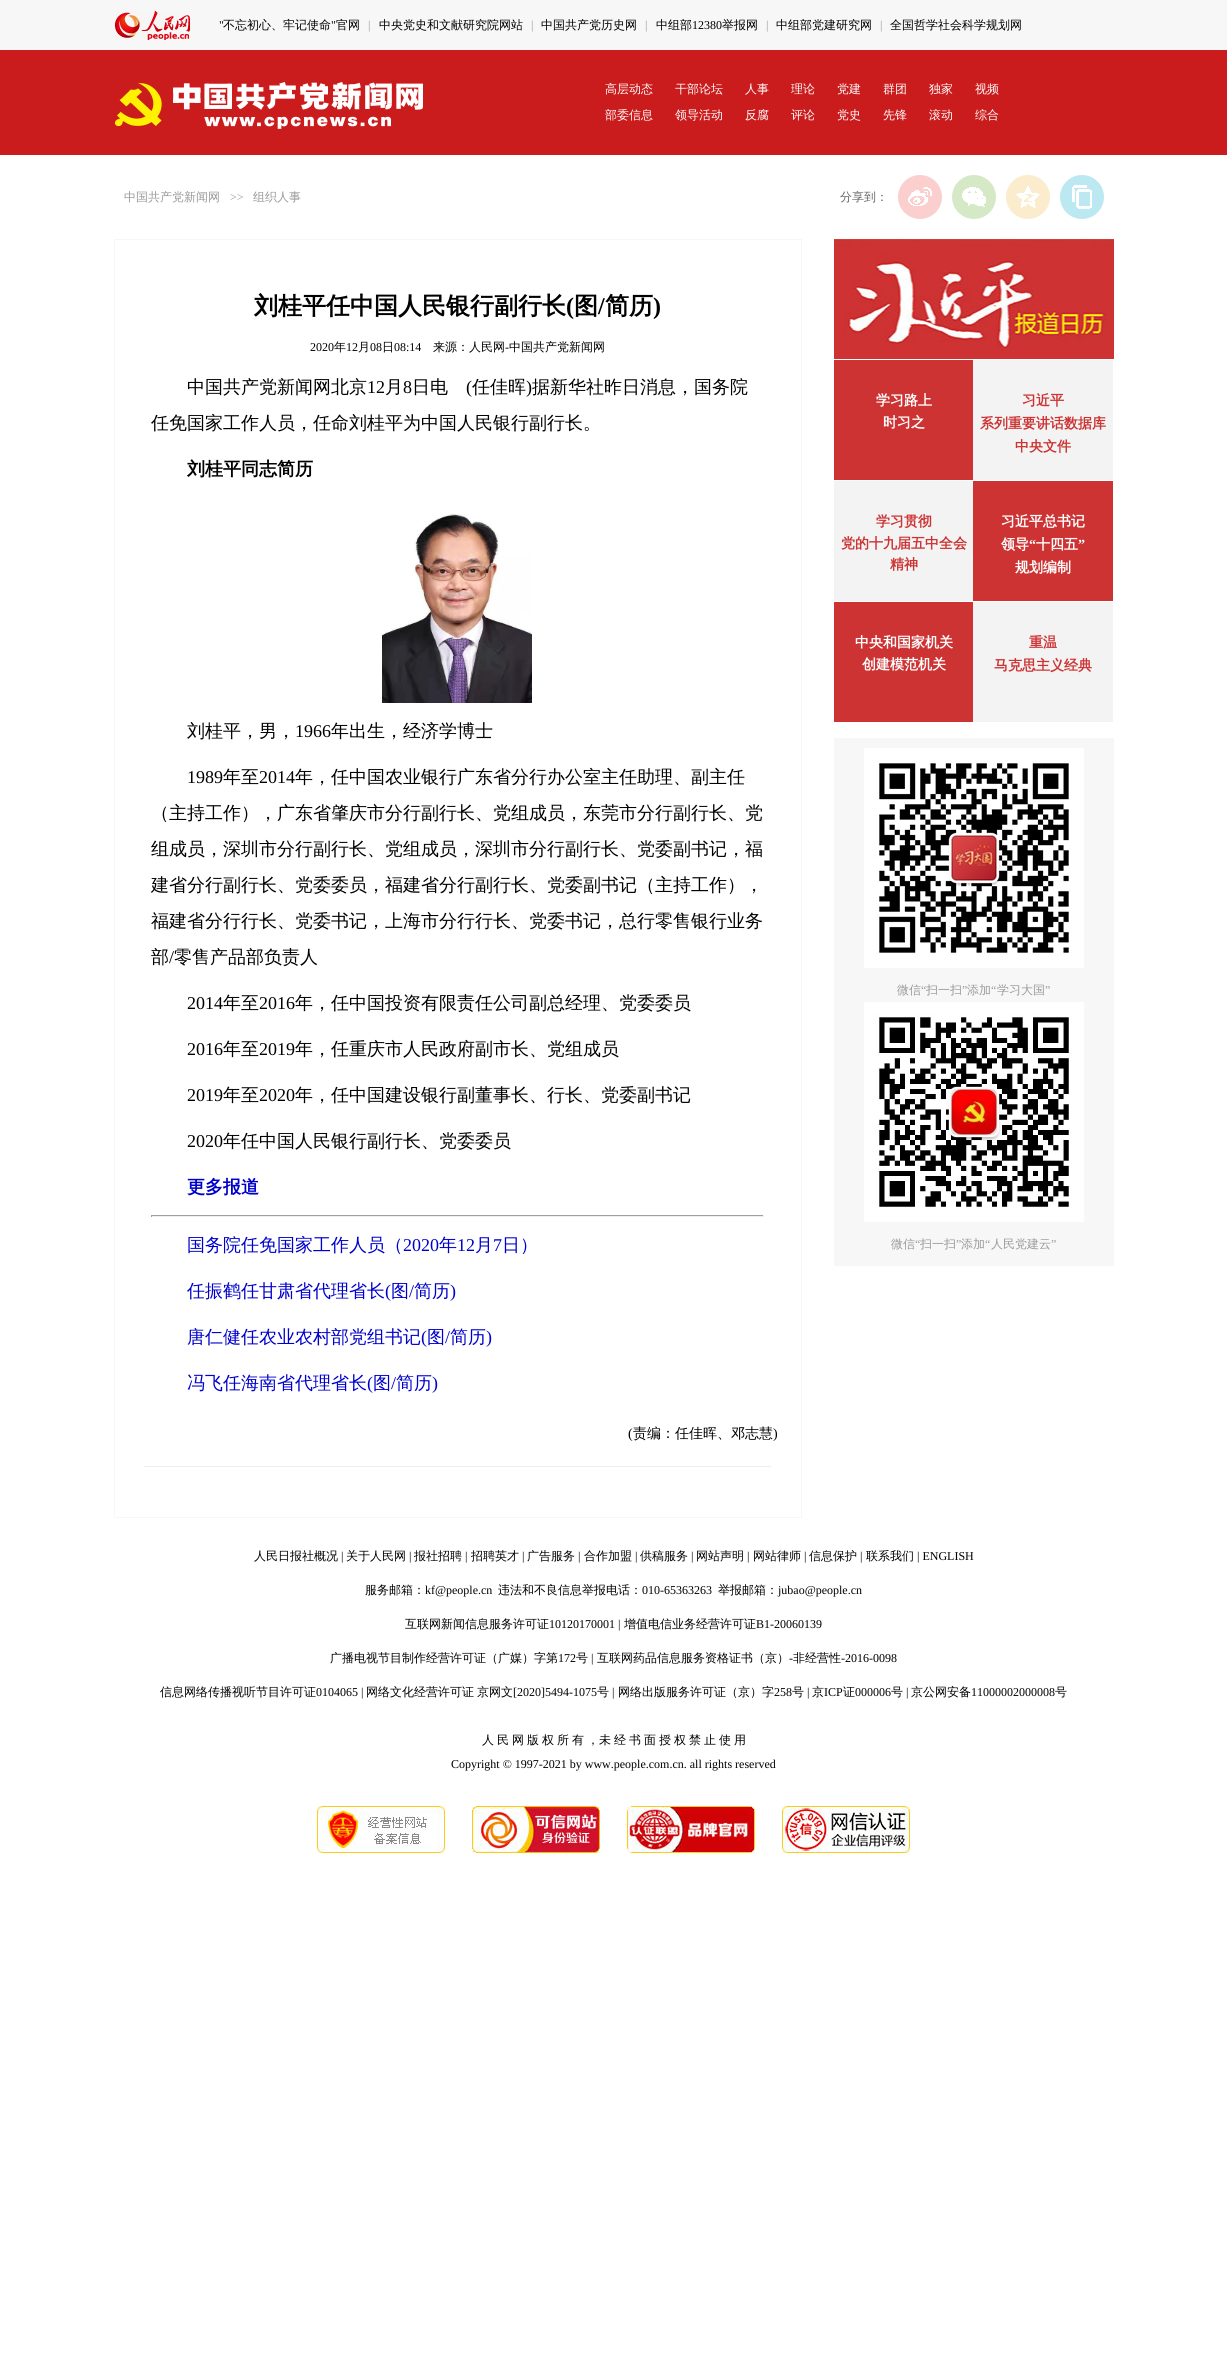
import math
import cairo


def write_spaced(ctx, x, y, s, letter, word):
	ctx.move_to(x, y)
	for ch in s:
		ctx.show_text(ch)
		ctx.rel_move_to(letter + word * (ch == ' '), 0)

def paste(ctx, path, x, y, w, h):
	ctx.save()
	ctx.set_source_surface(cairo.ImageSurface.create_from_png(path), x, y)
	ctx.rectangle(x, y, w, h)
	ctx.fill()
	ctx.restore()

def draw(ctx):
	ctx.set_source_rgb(1, 1, 1)
	ctx.paint()
	ctx.set_source_rgb(0.965, 0.965, 0.965)
	ctx.rectangle(0, 0, 1227, 50)
	ctx.fill()
	paste(ctx, 'media/1.png', 115, 11, 75, 29)
	ctx.select_font_face('Liberation Serif')
	ctx.set_font_size(12)
	ctx.set_source_rgb(0, 0, 0)
	ctx.move_to(219, 29)
	ctx.show_text('"')
	ctx.select_font_face('WenQuanYi Zen Hei Medium')
	ctx.move_to(223, 29)
	ctx.show_text('不忘初心、牢记使命')
	ctx.select_font_face('Liberation Serif')
	ctx.move_to(331, 29)
	ctx.show_text('"')
	ctx.select_font_face('WenQuanYi Zen Hei Medium')
	ctx.move_to(336, 29)
	ctx.show_text('官网')
	ctx.select_font_face('Liberation Serif')
	ctx.set_source_rgb(0.6, 0.6, 0.6)
	ctx.move_to(368, 29)
	ctx.show_text('|')
	ctx.select_font_face('WenQuanYi Zen Hei Medium')
	ctx.set_source_rgb(0, 0, 0)
	ctx.move_to(379, 29)
	ctx.show_text('中央党史和文献研究院网站')
	ctx.select_font_face('Liberation Serif')
	ctx.set_source_rgb(0.6, 0.6, 0.6)
	ctx.move_to(531, 29)
	ctx.show_text('|')
	ctx.select_font_face('WenQuanYi Zen Hei Medium')
	ctx.set_source_rgb(0, 0, 0)
	ctx.move_to(541, 29)
	ctx.show_text('中国共产党历史网')
	ctx.select_font_face('Liberation Serif')
	ctx.set_source_rgb(0.6, 0.6, 0.6)
	ctx.move_to(645, 29)
	ctx.show_text('|')
	ctx.select_font_face('WenQuanYi Zen Hei Medium')
	ctx.set_source_rgb(0, 0, 0)
	ctx.move_to(656, 29)
	ctx.show_text('中组部')
	ctx.select_font_face('Liberation Serif')
	ctx.move_to(692, 29)
	ctx.show_text('12380')
	ctx.select_font_face('WenQuanYi Zen Hei Medium')
	ctx.move_to(722, 29)
	ctx.show_text('举报网')
	ctx.select_font_face('Liberation Serif')
	ctx.set_source_rgb(0.6, 0.6, 0.6)
	ctx.move_to(766, 29)
	ctx.show_text('|')
	ctx.select_font_face('WenQuanYi Zen Hei Medium')
	ctx.set_source_rgb(0, 0, 0)
	ctx.move_to(776, 29)
	ctx.show_text('中组部党建研究网')
	ctx.select_font_face('Liberation Serif')
	ctx.set_source_rgb(0.6, 0.6, 0.6)
	ctx.move_to(880, 29)
	ctx.show_text('|')
	ctx.select_font_face('WenQuanYi Zen Hei Medium')
	ctx.set_source_rgb(0, 0, 0)
	ctx.move_to(890, 29)
	ctx.show_text('全国哲学社会科学规划网')
	ctx.set_source_rgb(0.796, 0.11, 0.114)
	ctx.rectangle(0, 50, 1227, 105)
	ctx.fill()
	paste(ctx, 'media/2.png', 115, 82, 308, 47)
	ctx.set_source_rgb(1, 1, 1)
	for x, y, s in [
		(605, 93, '高层动态'),
		(675, 93, '干部论坛'),
		(745, 93, '人事'),
		(791, 93, '理论'),
		(837, 93, '党建'),
		(883, 93, '群团'),
		(929, 93, '独家'),
		(975, 93, '视频'),
		(605, 119, '部委信息'),
		(675, 119, '领导活动'),
		(745, 119, '反腐'),
		(791, 119, '评论'),
		(837, 119, '党史'),
		(883, 119, '先锋'),
		(929, 119, '滚动'),
		(975, 119, '综合'),
	]:
		ctx.move_to(x, y)
		ctx.show_text(s)
	ctx.set_source_rgb(0.6, 0.6, 0.6)
	ctx.move_to(124, 201)
	ctx.show_text('中国共产党新闻网')
	ctx.select_font_face('Liberation Serif')
	ctx.move_to(230, 201)
	ctx.show_text('>>')
	ctx.select_font_face('WenQuanYi Zen Hei Medium')
	ctx.move_to(253, 201)
	ctx.show_text('组织人事')
	ctx.set_source_rgb(0.4, 0.4, 0.4)
	ctx.move_to(840, 201)
	ctx.show_text('分享到：')
	ctx.set_source_rgb(0.988, 0.812, 0.812)
	ctx.new_path()
	ctx.arc(920, 197, 22, 0, 2 * math.pi)
	ctx.fill()
	paste(ctx, 'media/3.png', 908, 187, 24, 19)
	ctx.set_source_rgb(0.839, 0.914, 0.776)
	ctx.arc(974, 197, 22, 0, 2 * math.pi)
	ctx.fill()
	paste(ctx, 'media/4.png', 962, 187, 24, 20)
	ctx.set_source_rgb(0.98, 0.922, 0.8)
	ctx.arc(1028, 197, 22, 0, 2 * math.pi)
	ctx.fill()
	paste(ctx, 'media/5.png', 1016, 186, 24, 22)
	ctx.set_source_rgb(0.737, 0.91, 0.945)
	ctx.arc(1082, 197, 22, 0, 2 * math.pi)
	ctx.fill()
	paste(ctx, 'media/6.png', 1072, 185, 20, 24)
	ctx.rectangle(114.5, 239.5, 687, 1278)
	ctx.set_source_rgb(0.965, 0.965, 0.965)
	ctx.set_line_width(1)
	ctx.stroke()
	ctx.select_font_face('WenQuanYi Zen Hei', cairo.FONT_SLANT_NORMAL, cairo.FONT_WEIGHT_BOLD)
	ctx.set_font_size(24)
	ctx.set_source_rgb(0, 0, 0)
	ctx.move_to(254, 314)
	ctx.show_text('刘桂平任中国人民银行副行长')
	ctx.select_font_face('Liberation Serif', cairo.FONT_SLANT_NORMAL, cairo.FONT_WEIGHT_BOLD)
	ctx.move_to(566, 314)
	ctx.show_text('(')
	ctx.select_font_face('WenQuanYi Zen Hei', cairo.FONT_SLANT_NORMAL, cairo.FONT_WEIGHT_BOLD)
	ctx.move_to(574, 314)
	ctx.show_text('图')
	ctx.select_font_face('Liberation Serif', cairo.FONT_SLANT_NORMAL, cairo.FONT_WEIGHT_BOLD)
	ctx.move_to(598, 314)
	ctx.show_text('/')
	ctx.select_font_face('WenQuanYi Zen Hei', cairo.FONT_SLANT_NORMAL, cairo.FONT_WEIGHT_BOLD)
	ctx.move_to(605, 314)
	ctx.show_text('简历')
	ctx.select_font_face('Liberation Serif', cairo.FONT_SLANT_NORMAL, cairo.FONT_WEIGHT_BOLD)
	ctx.move_to(653, 314)
	ctx.show_text(')')
	ctx.select_font_face('Liberation Serif')
	ctx.set_font_size(12)
	ctx.move_to(310, 351)
	ctx.show_text('2020')
	ctx.select_font_face('WenQuanYi Zen Hei Medium')
	ctx.move_to(334, 351)
	ctx.show_text('年')
	ctx.select_font_face('Liberation Serif')
	ctx.move_to(346, 351)
	ctx.show_text('12')
	ctx.select_font_face('WenQuanYi Zen Hei Medium')
	ctx.move_to(358, 351)
	ctx.show_text('月')
	ctx.select_font_face('Liberation Serif')
	ctx.move_to(370, 351)
	ctx.show_text('08')
	ctx.select_font_face('WenQuanYi Zen Hei Medium')
	ctx.move_to(382, 351)
	ctx.show_text('日')
	ctx.select_font_face('Liberation Serif')
	ctx.move_to(394, 351)
	ctx.show_text('08:14')
	ctx.select_font_face('WenQuanYi Zen Hei Medium')
	ctx.move_to(433, 351)
	ctx.show_text('来源：人民网')
	ctx.select_font_face('Liberation Serif')
	ctx.move_to(505, 351)
	ctx.show_text('-')
	ctx.select_font_face('WenQuanYi Zen Hei Medium')
	ctx.move_to(509, 351)
	ctx.show_text('中国共产党新闻网')
	ctx.set_font_size(18)
	ctx.move_to(187, 393)
	ctx.show_text('中国共产党新闻网北京')
	ctx.select_font_face('Liberation Serif')
	ctx.move_to(367, 393)
	ctx.show_text('12')
	ctx.select_font_face('WenQuanYi Zen Hei Medium')
	ctx.move_to(385, 393)
	ctx.show_text('月')
	ctx.select_font_face('Liberation Serif')
	ctx.move_to(403, 393)
	ctx.show_text('8')
	ctx.select_font_face('WenQuanYi Zen Hei Medium')
	ctx.move_to(412, 393)
	ctx.show_text('日电')
	ctx.select_font_face('Liberation Serif')
	ctx.move_to(466, 393)
	ctx.show_text('(')
	ctx.select_font_face('WenQuanYi Zen Hei Medium')
	ctx.move_to(472, 393)
	ctx.show_text('任佳晖')
	ctx.select_font_face('Liberation Serif')
	ctx.move_to(526, 393)
	ctx.show_text(')')
	ctx.select_font_face('WenQuanYi Zen Hei Medium')
	ctx.move_to(532, 393)
	ctx.show_text('据新华社昨日消息，国务院')
	ctx.move_to(151, 429)
	ctx.show_text('任免国家工作人员，任命刘桂平为中国人民银行副行长。')
	ctx.select_font_face('WenQuanYi Zen Hei', cairo.FONT_SLANT_NORMAL, cairo.FONT_WEIGHT_BOLD)
	ctx.move_to(187, 475)
	ctx.show_text('刘桂平同志简历')
	paste(ctx, 'media/7.png', 382, 514, 150, 189)
	ctx.select_font_face('WenQuanYi Zen Hei Medium')
	ctx.move_to(187, 737)
	ctx.show_text('刘桂平，男，')
	ctx.select_font_face('Liberation Serif')
	ctx.move_to(295, 737)
	ctx.show_text('1966')
	ctx.select_font_face('WenQuanYi Zen Hei Medium')
	ctx.move_to(331, 737)
	ctx.show_text('年出生，经济学博士')
	ctx.select_font_face('Liberation Serif')
	ctx.move_to(187, 783)
	ctx.show_text('1989')
	ctx.select_font_face('WenQuanYi Zen Hei Medium')
	ctx.move_to(223, 783)
	ctx.show_text('年至')
	ctx.select_font_face('Liberation Serif')
	ctx.move_to(259, 783)
	ctx.show_text('2014')
	ctx.select_font_face('WenQuanYi Zen Hei Medium')
	for x, y, s in [
		(295, 783, '年，任中国农业银行广东省分行办公室主任助理、副主任'),
		(151, 819, '（主持工作），广东省肇庆市分行副行长、党组成员，东莞市分行副行长、党'),
		(151, 855, '组成员，深圳市分行副行长、党组成员，深圳市分行副行长、党委副书记，福'),
		(151, 891, '建省分行副行长、党委委员，福建省分行副行长、党委副书记（主持工作），'),
		(151, 927, '福建省分行行长、党委书记，上海市分行行长、党委书记，总行零售银行业务'),
		(151, 963, '部'),
	]:
		ctx.move_to(x, y)
		ctx.show_text(s)
	ctx.select_font_face('Liberation Serif')
	ctx.move_to(169, 963)
	ctx.show_text('/')
	ctx.select_font_face('WenQuanYi Zen Hei Medium')
	ctx.move_to(174, 963)
	ctx.show_text('零售产品部负责人')
	ctx.select_font_face('Liberation Serif')
	ctx.move_to(187, 1009)
	ctx.show_text('2014')
	ctx.select_font_face('WenQuanYi Zen Hei Medium')
	ctx.move_to(223, 1009)
	ctx.show_text('年至')
	ctx.select_font_face('Liberation Serif')
	ctx.move_to(259, 1009)
	ctx.show_text('2016')
	ctx.select_font_face('WenQuanYi Zen Hei Medium')
	ctx.move_to(295, 1009)
	ctx.show_text('年，任中国投资有限责任公司副总经理、党委委员')
	ctx.select_font_face('Liberation Serif')
	ctx.move_to(187, 1055)
	ctx.show_text('2016')
	ctx.select_font_face('WenQuanYi Zen Hei Medium')
	ctx.move_to(223, 1055)
	ctx.show_text('年至')
	ctx.select_font_face('Liberation Serif')
	ctx.move_to(259, 1055)
	ctx.show_text('2019')
	ctx.select_font_face('WenQuanYi Zen Hei Medium')
	ctx.move_to(295, 1055)
	ctx.show_text('年，任重庆市人民政府副市长、党组成员')
	ctx.select_font_face('Liberation Serif')
	ctx.move_to(187, 1101)
	ctx.show_text('2019')
	ctx.select_font_face('WenQuanYi Zen Hei Medium')
	ctx.move_to(223, 1101)
	ctx.show_text('年至')
	ctx.select_font_face('Liberation Serif')
	ctx.move_to(259, 1101)
	ctx.show_text('2020')
	ctx.select_font_face('WenQuanYi Zen Hei Medium')
	ctx.move_to(295, 1101)
	ctx.show_text('年，任中国建设银行副董事长、行长、党委副书记')
	ctx.select_font_face('Liberation Serif')
	ctx.move_to(187, 1147)
	ctx.show_text('2020')
	ctx.select_font_face('WenQuanYi Zen Hei Medium')
	ctx.move_to(223, 1147)
	ctx.show_text('年任中国人民银行副行长、党委委员')
	ctx.select_font_face('WenQuanYi Zen Hei', cairo.FONT_SLANT_NORMAL, cairo.FONT_WEIGHT_BOLD)
	ctx.set_source_rgb(0, 0, 0.804)
	ctx.move_to(187, 1193)
	ctx.show_text('更多报道')
	ctx.set_source_rgb(0.624, 0.624, 0.624)
	ctx.rectangle(151, 1215, 613, 1)
	ctx.fill()
	ctx.set_source_rgb(0.933, 0.933, 0.933)
	ctx.rectangle(763, 1215, 1, 2)
	ctx.rectangle(151, 1216, 613, 1)
	ctx.fill()
	ctx.set_source_rgb(0.624, 0.624, 0.624)
	ctx.rectangle(151, 1215, 1, 2)
	ctx.fill()
	ctx.select_font_face('WenQuanYi Zen Hei Medium')
	ctx.set_source_rgb(0, 0, 0.804)
	ctx.move_to(187, 1251)
	ctx.show_text('国务院任免国家工作人员（')
	ctx.select_font_face('Liberation Serif')
	ctx.move_to(403, 1251)
	ctx.show_text('2020')
	ctx.select_font_face('WenQuanYi Zen Hei Medium')
	ctx.move_to(439, 1251)
	ctx.show_text('年')
	ctx.select_font_face('Liberation Serif')
	ctx.move_to(457, 1251)
	ctx.show_text('12')
	ctx.select_font_face('WenQuanYi Zen Hei Medium')
	ctx.move_to(475, 1251)
	ctx.show_text('月')
	ctx.select_font_face('Liberation Serif')
	ctx.move_to(493, 1251)
	ctx.show_text('7')
	ctx.select_font_face('WenQuanYi Zen Hei Medium')
	ctx.move_to(502, 1251)
	ctx.show_text('日）')
	ctx.move_to(187, 1297)
	ctx.show_text('任振鹤任甘肃省代理省长')
	ctx.select_font_face('Liberation Serif')
	ctx.move_to(385, 1297)
	ctx.show_text('(')
	ctx.select_font_face('WenQuanYi Zen Hei Medium')
	ctx.move_to(391, 1297)
	ctx.show_text('图')
	ctx.select_font_face('Liberation Serif')
	ctx.move_to(409, 1297)
	ctx.show_text('/')
	ctx.select_font_face('WenQuanYi Zen Hei Medium')
	ctx.move_to(414, 1297)
	ctx.show_text('简历')
	ctx.select_font_face('Liberation Serif')
	ctx.move_to(450, 1297)
	ctx.show_text(')')
	ctx.select_font_face('WenQuanYi Zen Hei Medium')
	ctx.move_to(187, 1343)
	ctx.show_text('唐仁健任农业农村部党组书记')
	ctx.select_font_face('Liberation Serif')
	ctx.move_to(421, 1343)
	ctx.show_text('(')
	ctx.select_font_face('WenQuanYi Zen Hei Medium')
	ctx.move_to(427, 1343)
	ctx.show_text('图')
	ctx.select_font_face('Liberation Serif')
	ctx.move_to(445, 1343)
	ctx.show_text('/')
	ctx.select_font_face('WenQuanYi Zen Hei Medium')
	ctx.move_to(450, 1343)
	ctx.show_text('简历')
	ctx.select_font_face('Liberation Serif')
	ctx.move_to(486, 1343)
	ctx.show_text(')')
	ctx.select_font_face('WenQuanYi Zen Hei Medium')
	ctx.move_to(187, 1389)
	ctx.show_text('冯飞任海南省代理省长')
	ctx.select_font_face('Liberation Serif')
	ctx.move_to(367, 1389)
	ctx.show_text('(')
	ctx.select_font_face('WenQuanYi Zen Hei Medium')
	ctx.move_to(373, 1389)
	ctx.show_text('图')
	ctx.select_font_face('Liberation Serif')
	ctx.move_to(391, 1389)
	ctx.show_text('/')
	ctx.select_font_face('WenQuanYi Zen Hei Medium')
	ctx.move_to(396, 1389)
	ctx.show_text('简历')
	ctx.select_font_face('Liberation Serif')
	ctx.move_to(432, 1389)
	ctx.show_text(')')
	ctx.set_font_size(14)
	ctx.set_source_rgb(0, 0, 0)
	ctx.move_to(628, 1438)
	ctx.show_text('(')
	ctx.select_font_face('WenQuanYi Zen Hei Medium')
	ctx.move_to(633, 1438)
	ctx.show_text('责编：任佳晖、邓志慧')
	ctx.select_font_face('Liberation Serif')
	ctx.move_to(773, 1438)
	ctx.show_text(')')
	ctx.set_source_rgb(0.933, 0.933, 0.933)
	ctx.rectangle(144, 1466, 627, 1)
	ctx.fill()
	paste(ctx, 'media/8.png', 834, 239, 280, 120)
	ctx.set_source_rgb(0.804, 0.2, 0.2)
	ctx.rectangle(834, 360, 139, 120)
	ctx.fill()
	ctx.select_font_face('WenQuanYi Zen Hei', cairo.FONT_SLANT_NORMAL, cairo.FONT_WEIGHT_BOLD)
	ctx.set_source_rgb(1, 1, 1)
	ctx.move_to(876, 405)
	ctx.show_text('学习路上')
	ctx.move_to(883, 427)
	ctx.show_text('时习之')
	ctx.set_source_rgb(0.953, 0.953, 0.953)
	ctx.rectangle(973, 360, 140, 120)
	ctx.fill()
	ctx.set_source_rgb(0.804, 0.2, 0.2)
	for x, y, s in [
		(1022, 405, '习近平'),
		(980, 428, '系列重要讲话数据库'),
		(1015, 451, '中央文件'),
	]:
		ctx.move_to(x, y)
		ctx.show_text(s)
	ctx.set_source_rgb(0.953, 0.953, 0.953)
	ctx.rectangle(834, 481, 139, 120)
	ctx.fill()
	ctx.set_source_rgb(0.804, 0.2, 0.2)
	for x, y, s in [
		(876, 526, '学习贯彻'),
		(841, 548, '党的十九届五中全会'),
		(890, 569, '精神'),
	]:
		ctx.move_to(x, y)
		ctx.show_text(s)
	ctx.rectangle(973, 481, 140, 120)
	ctx.fill()
	ctx.set_source_rgb(1, 1, 1)
	ctx.move_to(1001, 526)
	ctx.show_text('习近平总书记')
	ctx.move_to(1001, 549)
	ctx.show_text('领导')
	ctx.select_font_face('Liberation Serif', cairo.FONT_SLANT_NORMAL, cairo.FONT_WEIGHT_BOLD)
	ctx.move_to(1029, 549)
	ctx.show_text('“')
	ctx.select_font_face('WenQuanYi Zen Hei', cairo.FONT_SLANT_NORMAL, cairo.FONT_WEIGHT_BOLD)
	ctx.move_to(1036, 549)
	ctx.show_text('十四五')
	ctx.select_font_face('Liberation Serif', cairo.FONT_SLANT_NORMAL, cairo.FONT_WEIGHT_BOLD)
	ctx.move_to(1078, 549)
	ctx.show_text('”')
	ctx.select_font_face('WenQuanYi Zen Hei', cairo.FONT_SLANT_NORMAL, cairo.FONT_WEIGHT_BOLD)
	ctx.move_to(1015, 572)
	ctx.show_text('规划编制')
	ctx.set_source_rgb(0.804, 0.2, 0.2)
	ctx.rectangle(834, 602, 139, 120)
	ctx.fill()
	ctx.set_source_rgb(1, 1, 1)
	ctx.move_to(855, 647)
	ctx.show_text('中央和国家机关')
	ctx.move_to(862, 669)
	ctx.show_text('创建模范机关')
	ctx.set_source_rgb(0.953, 0.953, 0.953)
	ctx.rectangle(973, 602, 140, 120)
	ctx.fill()
	ctx.set_source_rgb(0.804, 0.2, 0.2)
	ctx.move_to(1029, 647)
	ctx.show_text('重温')
	ctx.move_to(994, 670)
	ctx.show_text('马克思主义经典')
	ctx.set_source_rgb(0.965, 0.965, 0.965)
	ctx.rectangle(834, 738, 280, 528)
	ctx.fill()
	paste(ctx, 'media/9.png', 864, 748, 220, 220)
	ctx.select_font_face('WenQuanYi Zen Hei Medium')
	ctx.set_font_size(12)
	ctx.set_source_rgb(0.6, 0.6, 0.6)
	ctx.move_to(897, 994)
	ctx.show_text('微信')
	ctx.select_font_face('Liberation Serif')
	ctx.move_to(921, 994)
	ctx.show_text('“')
	ctx.select_font_face('WenQuanYi Zen Hei Medium')
	ctx.move_to(926, 994)
	ctx.show_text('扫一扫')
	ctx.select_font_face('Liberation Serif')
	ctx.move_to(962, 994)
	ctx.show_text('”')
	ctx.select_font_face('WenQuanYi Zen Hei Medium')
	ctx.move_to(967, 994)
	ctx.show_text('添加')
	ctx.select_font_face('Liberation Serif')
	ctx.move_to(991, 994)
	ctx.show_text('“')
	ctx.select_font_face('WenQuanYi Zen Hei Medium')
	ctx.move_to(997, 994)
	ctx.show_text('学习大国')
	ctx.select_font_face('Liberation Serif')
	ctx.move_to(1045, 994)
	ctx.show_text('”')
	paste(ctx, 'media/10.png', 864, 1002, 220, 220)
	ctx.select_font_face('WenQuanYi Zen Hei Medium')
	ctx.move_to(891, 1248)
	ctx.show_text('微信')
	ctx.select_font_face('Liberation Serif')
	ctx.move_to(915, 1248)
	ctx.show_text('“')
	ctx.select_font_face('WenQuanYi Zen Hei Medium')
	ctx.move_to(920, 1248)
	ctx.show_text('扫一扫')
	ctx.select_font_face('Liberation Serif')
	ctx.move_to(956, 1248)
	ctx.show_text('”')
	ctx.select_font_face('WenQuanYi Zen Hei Medium')
	ctx.move_to(961, 1248)
	ctx.show_text('添加')
	ctx.select_font_face('Liberation Serif')
	ctx.move_to(985, 1248)
	ctx.show_text('“')
	ctx.select_font_face('WenQuanYi Zen Hei Medium')
	ctx.move_to(991, 1248)
	ctx.show_text('人民党建云')
	ctx.select_font_face('Liberation Serif')
	ctx.move_to(1051, 1248)
	ctx.show_text('”')
	ctx.select_font_face('WenQuanYi Zen Hei Medium')
	ctx.set_source_rgb(0, 0, 0)
	ctx.move_to(254, 1560)
	ctx.show_text('人民日报社概况')
	ctx.select_font_face('Liberation Serif')
	ctx.move_to(341, 1560)
	ctx.show_text('|')
	ctx.select_font_face('WenQuanYi Zen Hei Medium')
	ctx.move_to(346, 1560)
	ctx.show_text('关于人民网')
	ctx.select_font_face('Liberation Serif')
	ctx.move_to(409, 1560)
	ctx.show_text('|')
	ctx.select_font_face('WenQuanYi Zen Hei Medium')
	ctx.move_to(414, 1560)
	ctx.show_text('报社招聘')
	ctx.select_font_face('Liberation Serif')
	ctx.move_to(465, 1560)
	ctx.show_text('|')
	ctx.select_font_face('WenQuanYi Zen Hei Medium')
	ctx.move_to(471, 1560)
	ctx.show_text('招聘英才')
	ctx.select_font_face('Liberation Serif')
	ctx.move_to(522, 1560)
	ctx.show_text('|')
	ctx.select_font_face('WenQuanYi Zen Hei Medium')
	ctx.move_to(527, 1560)
	ctx.show_text('广告服务')
	ctx.select_font_face('Liberation Serif')
	ctx.move_to(578, 1560)
	ctx.show_text('|')
	ctx.select_font_face('WenQuanYi Zen Hei Medium')
	ctx.move_to(584, 1560)
	ctx.show_text('合作加盟')
	ctx.select_font_face('Liberation Serif')
	ctx.move_to(635, 1560)
	ctx.show_text('|')
	ctx.select_font_face('WenQuanYi Zen Hei Medium')
	ctx.move_to(640, 1560)
	ctx.show_text('供稿服务')
	ctx.select_font_face('Liberation Serif')
	ctx.move_to(691, 1560)
	ctx.show_text('|')
	ctx.select_font_face('WenQuanYi Zen Hei Medium')
	ctx.move_to(696, 1560)
	ctx.show_text('网站声明')
	ctx.select_font_face('Liberation Serif')
	ctx.move_to(747, 1560)
	ctx.show_text('|')
	ctx.select_font_face('WenQuanYi Zen Hei Medium')
	ctx.move_to(753, 1560)
	ctx.show_text('网站律师')
	ctx.select_font_face('Liberation Serif')
	ctx.move_to(804, 1560)
	ctx.show_text('|')
	ctx.select_font_face('WenQuanYi Zen Hei Medium')
	ctx.move_to(809, 1560)
	ctx.show_text('信息保护')
	ctx.select_font_face('Liberation Serif')
	ctx.move_to(860, 1560)
	ctx.show_text('|')
	ctx.select_font_face('WenQuanYi Zen Hei Medium')
	ctx.move_to(866, 1560)
	ctx.show_text('联系我们')
	ctx.select_font_face('Liberation Serif')
	ctx.move_to(917, 1560)
	ctx.show_text('| ENGLISH')
	ctx.select_font_face('WenQuanYi Zen Hei Medium')
	ctx.move_to(365, 1594)
	ctx.show_text('服务邮箱：')
	ctx.select_font_face('Liberation Serif')
	ctx.move_to(425, 1594)
	ctx.show_text('kf@people.cn')
	ctx.select_font_face('WenQuanYi Zen Hei Medium')
	ctx.move_to(498, 1594)
	ctx.show_text('违法和不良信息举报电话：')
	ctx.select_font_face('Liberation Serif')
	ctx.move_to(642, 1594)
	ctx.show_text('010-65363263')
	ctx.select_font_face('WenQuanYi Zen Hei Medium')
	ctx.move_to(718, 1594)
	ctx.show_text('举报邮箱：')
	ctx.select_font_face('Liberation Serif')
	ctx.move_to(778, 1594)
	ctx.show_text('jubao@people.cn')
	ctx.select_font_face('WenQuanYi Zen Hei Medium')
	ctx.move_to(405, 1628)
	ctx.show_text('互联网新闻信息服务许可证')
	ctx.select_font_face('Liberation Serif')
	ctx.move_to(549, 1628)
	ctx.show_text('10120170001 |')
	ctx.select_font_face('WenQuanYi Zen Hei Medium')
	ctx.move_to(624, 1628)
	ctx.show_text('增值电信业务经营许可证')
	ctx.select_font_face('Liberation Serif')
	ctx.move_to(756, 1628)
	ctx.show_text('B1-20060139')
	ctx.select_font_face('WenQuanYi Zen Hei Medium')
	ctx.move_to(330, 1662)
	ctx.show_text('广播电视节目制作经营许可证（广媒）字第')
	ctx.select_font_face('Liberation Serif')
	ctx.move_to(558, 1662)
	ctx.show_text('172')
	ctx.select_font_face('WenQuanYi Zen Hei Medium')
	ctx.move_to(576, 1662)
	ctx.show_text('号')
	ctx.select_font_face('Liberation Serif')
	ctx.move_to(591, 1662)
	ctx.show_text('|')
	ctx.select_font_face('WenQuanYi Zen Hei Medium')
	ctx.move_to(597, 1662)
	ctx.show_text('互联网药品信息服务资格证书（京）')
	ctx.select_font_face('Liberation Serif')
	ctx.move_to(789, 1662)
	ctx.show_text('-')
	ctx.select_font_face('WenQuanYi Zen Hei Medium')
	ctx.move_to(793, 1662)
	ctx.show_text('非经营性')
	ctx.select_font_face('Liberation Serif')
	ctx.move_to(841, 1662)
	ctx.show_text('-2016-0098')
	ctx.select_font_face('WenQuanYi Zen Hei Medium')
	ctx.move_to(160, 1696)
	ctx.show_text('信息网络传播视听节目许可证')
	ctx.select_font_face('Liberation Serif')
	ctx.move_to(316, 1696)
	ctx.show_text('0104065 |')
	ctx.select_font_face('WenQuanYi Zen Hei Medium')
	write_spaced(ctx, 366, 1696, '网络文化经营许可证 京网文', 0, -0.6)
	ctx.select_font_face('Liberation Serif')
	ctx.move_to(513, 1696)
	ctx.show_text('[2020]5494-1075')
	ctx.select_font_face('WenQuanYi Zen Hei Medium')
	ctx.move_to(597, 1696)
	ctx.show_text('号')
	ctx.select_font_face('Liberation Serif')
	ctx.move_to(612, 1696)
	ctx.show_text('|')
	ctx.select_font_face('WenQuanYi Zen Hei Medium')
	ctx.move_to(618, 1696)
	ctx.show_text('网络出版服务许可证（京）字')
	ctx.select_font_face('Liberation Serif')
	ctx.move_to(774, 1696)
	ctx.show_text('258')
	ctx.select_font_face('WenQuanYi Zen Hei Medium')
	ctx.move_to(792, 1696)
	ctx.show_text('号')
	ctx.select_font_face('Liberation Serif')
	ctx.move_to(807, 1696)
	ctx.show_text('|')
	ctx.select_font_face('WenQuanYi Zen Hei Medium')
	ctx.move_to(812, 1696)
	ctx.show_text('京')
	ctx.select_font_face('Liberation Serif')
	ctx.move_to(824, 1696)
	ctx.show_text('ICP')
	ctx.select_font_face('WenQuanYi Zen Hei Medium')
	ctx.move_to(843, 1696)
	ctx.show_text('证')
	ctx.select_font_face('Liberation Serif')
	ctx.move_to(855, 1696)
	ctx.show_text('000006')
	ctx.select_font_face('WenQuanYi Zen Hei Medium')
	ctx.move_to(891, 1696)
	ctx.show_text('号')
	ctx.select_font_face('Liberation Serif')
	ctx.move_to(906, 1696)
	ctx.show_text('|')
	ctx.select_font_face('WenQuanYi Zen Hei Medium')
	ctx.move_to(911, 1696)
	ctx.show_text('京公网安备')
	ctx.select_font_face('Liberation Serif')
	ctx.move_to(971, 1696)
	ctx.show_text('11000002000008')
	ctx.select_font_face('WenQuanYi Zen Hei Medium')
	ctx.move_to(1055, 1696)
	ctx.show_text('号')
	write_spaced(ctx, 482, 1744, '人 民 网 版 权 所 有 ，未 经 书 面 授 权 禁 止 使 用', 0, -0.6)
	ctx.select_font_face('Liberation Serif')
	ctx.move_to(451, 1768)
	ctx.show_text('Copyright © 1997-2021 by www.people.com.cn. all rights reserved')
	paste(ctx, 'media/11.png', 317, 1806, 128, 47)
	paste(ctx, 'media/12.png', 472, 1806, 128, 47)
	paste(ctx, 'media/13.png', 627, 1806, 128, 47)
	paste(ctx, 'media/14.png', 782, 1806, 128, 47)


surface = cairo.ImageSurface(cairo.FORMAT_RGB24, 1227, 2379)
ctx = cairo.Context(surface)
options = cairo.FontOptions()
options.set_hint_metrics(cairo.HINT_METRICS_OFF)
options.set_hint_style(cairo.HINT_STYLE_NONE)
ctx.set_font_options(options)
ctx.set_miter_limit(4)
draw(ctx)
surface.write_to_png('image.png')
